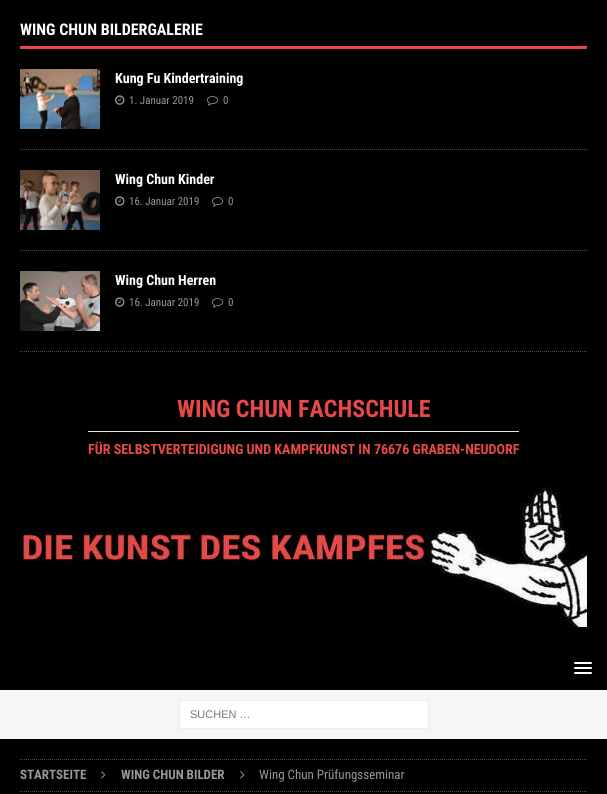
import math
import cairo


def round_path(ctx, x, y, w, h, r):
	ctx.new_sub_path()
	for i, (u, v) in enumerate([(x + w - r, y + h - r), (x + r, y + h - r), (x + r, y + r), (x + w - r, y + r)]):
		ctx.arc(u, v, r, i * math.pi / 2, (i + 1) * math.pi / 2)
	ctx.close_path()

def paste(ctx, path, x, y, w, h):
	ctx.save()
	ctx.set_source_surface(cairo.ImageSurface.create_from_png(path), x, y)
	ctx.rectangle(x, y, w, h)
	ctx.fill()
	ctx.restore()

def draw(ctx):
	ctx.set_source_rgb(0, 0, 0)
	ctx.paint()
	ctx.set_source_rgb(0.902, 0.286, 0.275)
	ctx.rectangle(20, 46, 567, 3)
	ctx.fill()
	ctx.select_font_face('Roboto Condensed', cairo.FONT_SLANT_NORMAL, cairo.FONT_WEIGHT_BOLD)
	ctx.set_font_size(16)
	ctx.set_source_rgb(1, 1, 1)
	ctx.move_to(20, 35)
	ctx.show_text('WING CHUN BILDERGALERIE')
	ctx.new_path()
	ctx.move_to(20, 149.5)
	ctx.line_to(587, 149.5)
	ctx.set_source_rgb(0.302, 0.302, 0.302)
	ctx.set_line_width(1)
	ctx.set_dash([1, 1])
	ctx.stroke()
	paste(ctx, 'media/1.png', 20, 69, 80, 60)
	ctx.set_font_size(14)
	ctx.set_source_rgb(1, 1, 1)
	ctx.move_to(115, 83)
	ctx.show_text('Kung Fu Kindertraining')
	paste(ctx, 'media/2.png', 115, 95, 10, 10)
	ctx.select_font_face('Roboto Condensed')
	ctx.set_font_size(11)
	ctx.set_source_rgb(0.592, 0.592, 0.592)
	ctx.move_to(129, 104)
	ctx.show_text('1. Januar 2019')
	paste(ctx, 'media/3.png', 207, 96, 11, 10)
	ctx.move_to(223, 104)
	ctx.show_text('0')
	ctx.new_path()
	ctx.move_to(20, 250.5)
	ctx.line_to(587, 250.5)
	ctx.set_source_rgb(0.302, 0.302, 0.302)
	ctx.stroke()
	paste(ctx, 'media/4.png', 20, 170, 80, 60)
	ctx.select_font_face('Roboto Condensed', cairo.FONT_SLANT_NORMAL, cairo.FONT_WEIGHT_BOLD)
	ctx.set_font_size(14)
	ctx.set_source_rgb(1, 1, 1)
	ctx.move_to(115, 184)
	ctx.show_text('Wing Chun Kinder')
	paste(ctx, 'media/2.png', 115, 196, 10, 10)
	ctx.select_font_face('Roboto Condensed')
	ctx.set_font_size(11)
	ctx.set_source_rgb(0.592, 0.592, 0.592)
	ctx.move_to(129, 205)
	ctx.show_text('16. Januar 2019')
	paste(ctx, 'media/3.png', 212, 197, 11, 10)
	ctx.move_to(228, 205)
	ctx.show_text('0')
	ctx.new_path()
	ctx.move_to(20, 351.5)
	ctx.line_to(587, 351.5)
	ctx.set_source_rgb(0.302, 0.302, 0.302)
	ctx.stroke()
	paste(ctx, 'media/5.png', 20, 271, 80, 60)
	ctx.select_font_face('Roboto Condensed', cairo.FONT_SLANT_NORMAL, cairo.FONT_WEIGHT_BOLD)
	ctx.set_font_size(14)
	ctx.set_source_rgb(1, 1, 1)
	ctx.move_to(115, 285)
	ctx.show_text('Wing Chun Herren')
	paste(ctx, 'media/2.png', 115, 297, 10, 10)
	ctx.select_font_face('Roboto Condensed')
	ctx.set_font_size(11)
	ctx.set_source_rgb(0.592, 0.592, 0.592)
	ctx.move_to(129, 306)
	ctx.show_text('16. Januar 2019')
	paste(ctx, 'media/3.png', 212, 298, 11, 10)
	ctx.move_to(228, 306)
	ctx.show_text('0')
	ctx.select_font_face('Roboto Condensed', cairo.FONT_SLANT_NORMAL, cairo.FONT_WEIGHT_BOLD)
	ctx.set_font_size(24)
	ctx.set_source_rgb(0.902, 0.286, 0.275)
	ctx.move_to(177, 417)
	ctx.show_text('WING CHUN FACHSCHULE')
	ctx.set_source_rgb(0.898, 0.898, 0.898)
	ctx.rectangle(88, 431, 431, 1)
	ctx.fill()
	ctx.set_font_size(14)
	ctx.set_source_rgb(0.902, 0.286, 0.275)
	ctx.move_to(88, 454)
	ctx.show_text('FÜR SELBSTVERTEIDIGUNG UND KAMPFKUNST IN 76676 GRABEN-NEUDORF')
	paste(ctx, 'media/6.png', 20, 486, 567, 141)
	ctx.set_source_rgb(1, 1, 1)
	round_path(ctx, 574, 662, 18, 2, 1)
	ctx.fill()
	round_path(ctx, 574, 667, 18, 2, 1)
	ctx.fill()
	round_path(ctx, 574, 672, 18, 2, 1)
	ctx.fill()
	ctx.set_source_rgb(0.961, 0.961, 0.961)
	ctx.rectangle(0, 690, 607, 49)
	ctx.fill()
	ctx.set_source_rgb(1, 1, 1)
	ctx.rectangle(179.5, 700.5, 249, 28)
	ctx.fill_preserve()
	ctx.set_source_rgb(0.922, 0.922, 0.922)
	ctx.set_dash([])
	ctx.stroke()
	ctx.select_font_face('Liberation Sans')
	ctx.set_font_size(11)
	ctx.set_source_rgb(0.459, 0.459, 0.459)
	ctx.move_to(190, 718)
	ctx.show_text('SUCHEN …')
	ctx.new_path()
	ctx.move_to(20, 759.5)
	ctx.line_to(587, 759.5)
	ctx.set_source_rgb(0.302, 0.302, 0.302)
	ctx.set_dash([1, 1])
	ctx.stroke()
	ctx.new_path()
	ctx.move_to(20, 791.5)
	ctx.line_to(587, 791.5)
	ctx.stroke()
	ctx.select_font_face('Roboto Condensed', cairo.FONT_SLANT_NORMAL, cairo.FONT_WEIGHT_BOLD)
	ctx.set_font_size(13)
	ctx.set_source_rgb(0.592, 0.592, 0.592)
	ctx.move_to(20, 779)
	ctx.show_text('STARTSEITE')
	paste(ctx, 'media/7.png', 101, 771, 5, 8)
	ctx.move_to(121, 779)
	ctx.show_text('WING CHUN BILDER')
	paste(ctx, 'media/7.png', 240, 771, 5, 8)
	ctx.select_font_face('Roboto Condensed')
	ctx.move_to(259, 779)
	ctx.show_text('Wing Chun Prüfungsseminar')


surface = cairo.ImageSurface(cairo.FORMAT_RGB24, 607, 794)
ctx = cairo.Context(surface)
options = cairo.FontOptions()
options.set_hint_metrics(cairo.HINT_METRICS_OFF)
options.set_hint_style(cairo.HINT_STYLE_NONE)
ctx.set_font_options(options)
ctx.set_miter_limit(4)
draw(ctx)
surface.write_to_png('image.png')
